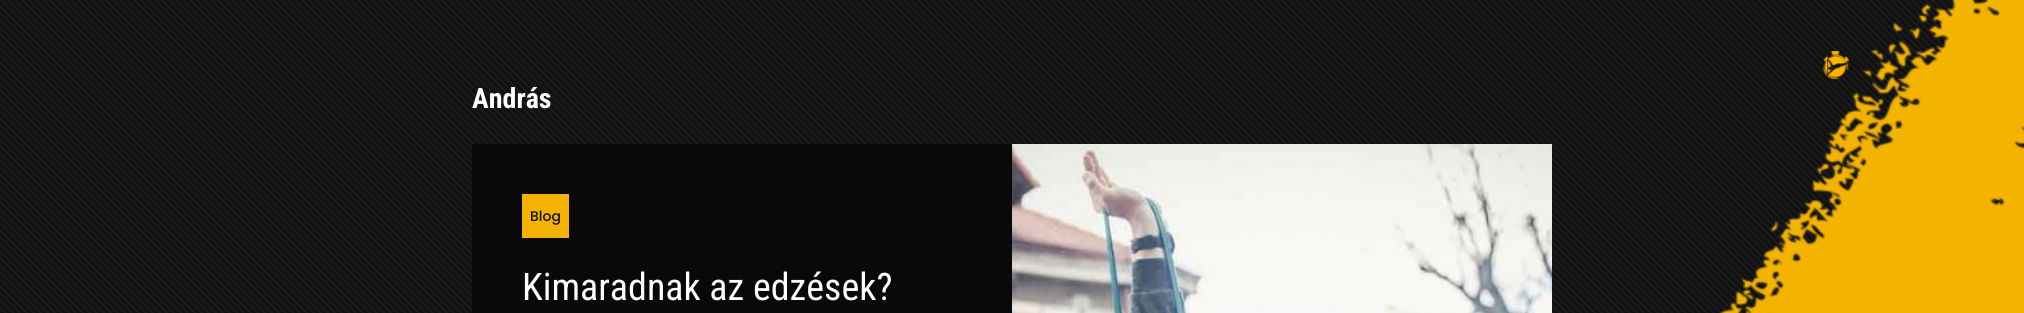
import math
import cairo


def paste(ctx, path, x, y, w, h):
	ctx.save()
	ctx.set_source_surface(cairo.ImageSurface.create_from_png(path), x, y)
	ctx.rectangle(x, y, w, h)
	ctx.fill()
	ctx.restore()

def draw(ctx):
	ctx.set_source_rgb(0.067, 0.067, 0.067)
	ctx.paint()
	paste(ctx, 'media/2.png', 0, 0, 2024, 313)
	paste(ctx, 'media/3.png', 1719, 0, 305, 313)
	paste(ctx, 'media/1.png', 1822, 50, 28, 30)
	ctx.select_font_face('Roboto Condensed', cairo.FONT_SLANT_NORMAL, cairo.FONT_WEIGHT_BOLD)
	ctx.set_font_size(28)
	ctx.set_source_rgb(1, 1, 1)
	ctx.move_to(472, 108)
	ctx.show_text('András')
	ctx.set_source_rgb(0.039, 0.039, 0.039)
	ctx.rectangle(472, 144, 540, 169)
	ctx.fill()
	ctx.set_source_rgb(0.953, 0.702, 0)
	ctx.rectangle(522, 194, 47, 44)
	ctx.fill()
	ctx.select_font_face('Poppins Medium')
	ctx.set_font_size(14)
	ctx.set_source_rgb(0.067, 0.067, 0.067)
	ctx.move_to(530, 221)
	ctx.show_text('Blog')
	ctx.select_font_face('Roboto Condensed')
	ctx.set_font_size(38)
	ctx.set_source_rgb(1, 1, 1)
	ctx.move_to(522, 300)
	ctx.show_text('Kimaradnak az edzések?')
	paste(ctx, 'media/4.png', 1012, 144, 540, 169)


surface = cairo.ImageSurface(cairo.FORMAT_RGB24, 2024, 313)
ctx = cairo.Context(surface)
options = cairo.FontOptions()
options.set_hint_metrics(cairo.HINT_METRICS_OFF)
options.set_hint_style(cairo.HINT_STYLE_NONE)
ctx.set_font_options(options)
ctx.set_miter_limit(4)
draw(ctx)
surface.write_to_png('image.png')
